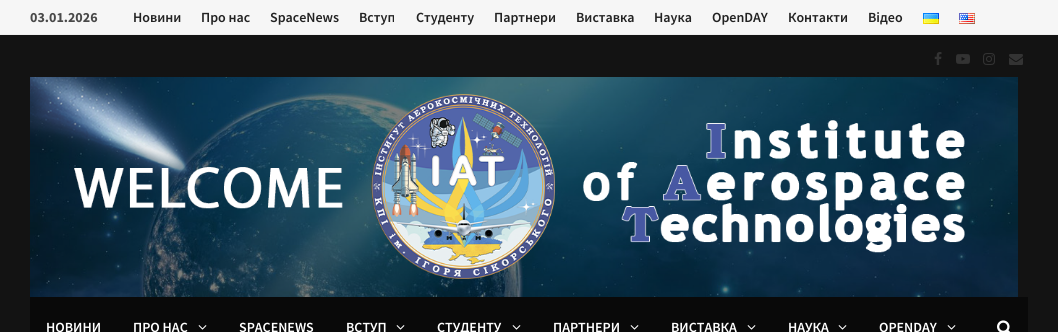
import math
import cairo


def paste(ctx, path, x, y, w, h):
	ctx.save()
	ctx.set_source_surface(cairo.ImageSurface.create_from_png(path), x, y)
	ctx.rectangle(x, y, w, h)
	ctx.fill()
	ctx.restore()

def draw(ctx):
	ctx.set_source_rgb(0.961, 0.961, 0.961)
	ctx.paint()
	ctx.set_source_rgb(0.933, 0.933, 0.933)
	ctx.rectangle(0, 34, 1058, 1)
	ctx.fill()
	ctx.select_font_face('Source Sans Pro', cairo.FONT_SLANT_NORMAL, cairo.FONT_WEIGHT_BOLD)
	ctx.set_font_size(14)
	ctx.set_source_rgb(0.286, 0.286, 0.286)
	ctx.move_to(30, 22)
	ctx.show_text('03.01.2026')
	ctx.select_font_face('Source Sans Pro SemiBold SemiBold')
	ctx.set_source_rgb(0.133, 0.133, 0.133)
	for x, y, s in [
		(133, 22, 'Новини'),
		(201, 22, 'Про нас'),
		(270, 22, 'SpaceNews'),
		(359, 22, 'Вступ'),
		(416, 22, 'Студенту'),
		(494, 22, 'Партнери'),
		(576, 22, 'Виставка'),
		(654, 22, 'Наука'),
		(712, 22, 'OpenDAY'),
		(788, 22, 'Контакти'),
		(868, 22, 'Відео'),
	]:
		ctx.move_to(x, y)
		ctx.show_text(s)
	paste(ctx, 'media/1.png', 923, 13, 16, 11)
	paste(ctx, 'media/2.png', 959, 13, 16, 11)
	ctx.set_source_rgb(0.078, 0.078, 0.078)
	ctx.rectangle(0, 35, 1058, 297)
	ctx.fill()
	paste(ctx, 'media/3.png', 934, 52, 8, 13)
	paste(ctx, 'media/4.png', 956, 54, 14, 10)
	paste(ctx, 'media/5.png', 983, 53, 12, 12)
	paste(ctx, 'media/6.png', 1009, 54, 14, 11)
	paste(ctx, 'media/7.png', 30, 77, 988, 220)
	ctx.set_source_rgb(0.039, 0.039, 0.039)
	ctx.rectangle(30, 297, 998, 35)
	ctx.fill()
	ctx.set_source_rgb(1, 1, 1)
	ctx.move_to(46, 332)
	ctx.show_text('НОВИНИ')
	ctx.move_to(133, 332)
	ctx.show_text('ПРО НАС')
	paste(ctx, 'media/8.png', 198, 325, 9, 5)
	ctx.move_to(239, 332)
	ctx.show_text('SPACENEWS')
	ctx.move_to(346, 332)
	ctx.show_text('ВСТУП')
	paste(ctx, 'media/8.png', 396, 325, 9, 5)
	ctx.move_to(437, 332)
	ctx.show_text('СТУДЕНТУ')
	paste(ctx, 'media/8.png', 512, 325, 9, 5)
	ctx.move_to(553, 332)
	ctx.show_text('ПАРТНЕРИ')
	paste(ctx, 'media/8.png', 630, 325, 9, 5)
	ctx.move_to(671, 332)
	ctx.show_text('ВИСТАВКА')
	paste(ctx, 'media/8.png', 747, 325, 9, 5)
	ctx.move_to(788, 332)
	ctx.show_text('НАУКА')
	paste(ctx, 'media/8.png', 838, 325, 9, 5)
	ctx.move_to(879, 332)
	ctx.show_text('OPENDAY')
	paste(ctx, 'media/8.png', 947, 325, 9, 5)
	paste(ctx, 'media/9.png', 997, 320, 13, 12)


surface = cairo.ImageSurface(cairo.FORMAT_RGB24, 1058, 332)
ctx = cairo.Context(surface)
options = cairo.FontOptions()
options.set_hint_metrics(cairo.HINT_METRICS_OFF)
options.set_hint_style(cairo.HINT_STYLE_NONE)
ctx.set_font_options(options)
ctx.set_miter_limit(4)
draw(ctx)
surface.write_to_png('image.png')
